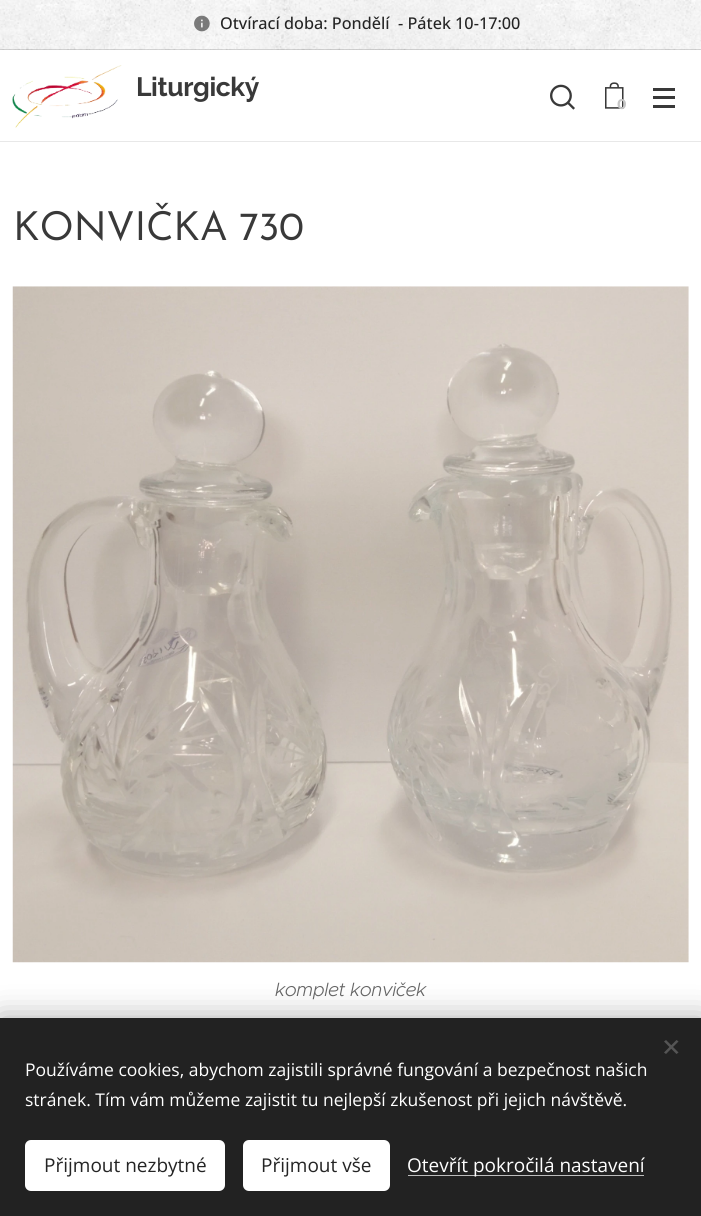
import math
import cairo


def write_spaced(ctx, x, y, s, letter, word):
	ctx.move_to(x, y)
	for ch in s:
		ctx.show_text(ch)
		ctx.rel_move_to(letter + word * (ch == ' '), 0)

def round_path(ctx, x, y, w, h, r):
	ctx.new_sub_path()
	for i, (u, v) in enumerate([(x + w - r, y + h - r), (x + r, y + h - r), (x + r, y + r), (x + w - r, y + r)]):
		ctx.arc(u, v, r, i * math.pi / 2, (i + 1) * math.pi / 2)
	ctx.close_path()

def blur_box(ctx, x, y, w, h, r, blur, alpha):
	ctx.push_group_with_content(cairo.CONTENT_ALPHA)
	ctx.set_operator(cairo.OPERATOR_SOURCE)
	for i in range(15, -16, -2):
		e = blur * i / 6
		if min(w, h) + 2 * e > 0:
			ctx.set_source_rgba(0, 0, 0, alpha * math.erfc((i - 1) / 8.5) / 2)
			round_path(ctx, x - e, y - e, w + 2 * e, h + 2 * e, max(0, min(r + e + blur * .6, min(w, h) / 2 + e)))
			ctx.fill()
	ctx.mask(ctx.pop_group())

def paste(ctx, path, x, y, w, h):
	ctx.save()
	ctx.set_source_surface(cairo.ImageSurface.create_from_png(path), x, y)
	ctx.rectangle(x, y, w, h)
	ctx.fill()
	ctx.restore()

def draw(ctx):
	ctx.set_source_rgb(1, 1, 1)
	ctx.paint()
	paste(ctx, 'media/1.png', 0, 0, 701, 50)
	paste(ctx, 'media/2.png', 194, 15, 16, 17)
	ctx.select_font_face('Open Sans Medium')
	ctx.set_font_size(16.25)
	ctx.set_source_rgb(0.141, 0.141, 0.141)
	ctx.move_to(220, 29)
	ctx.show_text('Otvírací doba: Pondělí  - Pátek 10-17:00')
	ctx.set_source_rgba(0, 0, 0, 0.15)
	ctx.rectangle(0, 49, 701, 1)
	ctx.fill()
	paste(ctx, 'media/3.png', 12, 65, 110, 63)
	ctx.select_font_face('Raleway', cairo.FONT_SLANT_NORMAL, cairo.FONT_WEIGHT_BOLD)
	ctx.set_font_size(26.5)
	ctx.set_source_rgb(0.224, 0.224, 0.224)
	write_spaced(ctx, 136, 96, 'Liturgický', -0.4, 0)
	paste(ctx, 'media/4.png', 550, 84, 25, 26)
	paste(ctx, 'media/5.png', 605, 82, 19, 27)
	ctx.select_font_face('Montserrat', cairo.FONT_SLANT_NORMAL, cairo.FONT_WEIGHT_BOLD)
	ctx.set_font_size(14)
	ctx.set_source_rgb(0.776, 0.776, 0.776)
	ctx.move_to(617, 109)
	ctx.show_text('0')
	ctx.set_source_rgb(0.224, 0.224, 0.224)
	ctx.rectangle(653, 96, 22, 3)
	ctx.rectangle(653, 88, 22, 3)
	ctx.rectangle(653, 105, 22, 3)
	ctx.fill()
	ctx.set_source_rgb(0.91, 0.91, 0.91)
	ctx.rectangle(0, 141, 701, 1)
	ctx.fill()
	ctx.select_font_face('Josefin Sans')
	ctx.set_font_size(40)
	ctx.set_source_rgb(0.224, 0.224, 0.224)
	write_spaced(ctx, 13, 240, 'KONVIČKA 730', -0.4, 0)
	paste(ctx, 'media/6.png', 12, 286, 677, 677)
	ctx.select_font_face('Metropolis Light', cairo.FONT_SLANT_ITALIC)
	ctx.set_font_size(19)
	ctx.set_source_rgb(0.4, 0.4, 0.4)
	write_spaced(ctx, 275, 996, 'komplet konviček', -0.4, 0)
	ctx.set_source_rgb(0, 0, 0)
	blur_box(ctx, 0, 1018, 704, 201, 0, 15.5, 0.33)
	ctx.set_source_rgb(0.133, 0.133, 0.133)
	ctx.rectangle(0, 1018, 701, 198)
	ctx.fill()
	ctx.set_source_rgb(0.333, 0.333, 0.333)
	ctx.new_path()
	ctx.move_to(664, 1052.5)
	ctx.line_to(676.5, 1040)
	ctx.line_to(678.5, 1041.5)
	ctx.line_to(666, 1054)
	ctx.close_path()
	ctx.fill()
	ctx.new_path()
	ctx.move_to(666, 1040)
	ctx.line_to(678.5, 1052.5)
	ctx.line_to(676.5, 1054)
	ctx.line_to(664, 1041.5)
	ctx.close_path()
	ctx.fill()
	ctx.select_font_face('Open Sans')
	ctx.set_font_size(17.5)
	ctx.set_source_rgb(1, 1, 1)
	ctx.move_to(25, 1076)
	ctx.show_text('Používáme cookies, abychom zajistili správné fungování a bezpečnost našich')
	ctx.move_to(25, 1106)
	ctx.show_text('stránek. Tím vám můžeme zajistit tu nejlepší zkušenost při jejich návštěvě.')
	round_path(ctx, 25, 1140, 200, 51, 6)
	ctx.fill()
	ctx.set_font_size(19)
	ctx.set_source_rgb(0.141, 0.141, 0.141)
	ctx.move_to(44, 1172)
	ctx.show_text('Přijmout nezbytné')
	ctx.set_source_rgb(1, 1, 1)
	round_path(ctx, 243, 1140, 147, 51, 6)
	ctx.fill()
	ctx.set_source_rgb(0.141, 0.141, 0.141)
	ctx.move_to(261, 1172)
	ctx.show_text('Přijmout vše')
	ctx.set_source_rgb(0.741, 0.741, 0.741)
	ctx.rectangle(408, 1175, 236, 1)
	ctx.fill()
	ctx.set_source_rgb(1, 1, 1)
	ctx.move_to(407, 1172)
	ctx.show_text('Otevřít pokročilá nastavení')


surface = cairo.ImageSurface(cairo.FORMAT_RGB24, 701, 1216)
ctx = cairo.Context(surface)
options = cairo.FontOptions()
options.set_hint_metrics(cairo.HINT_METRICS_OFF)
options.set_hint_style(cairo.HINT_STYLE_NONE)
ctx.set_font_options(options)
ctx.set_miter_limit(4)
draw(ctx)
surface.write_to_png('image.png')
